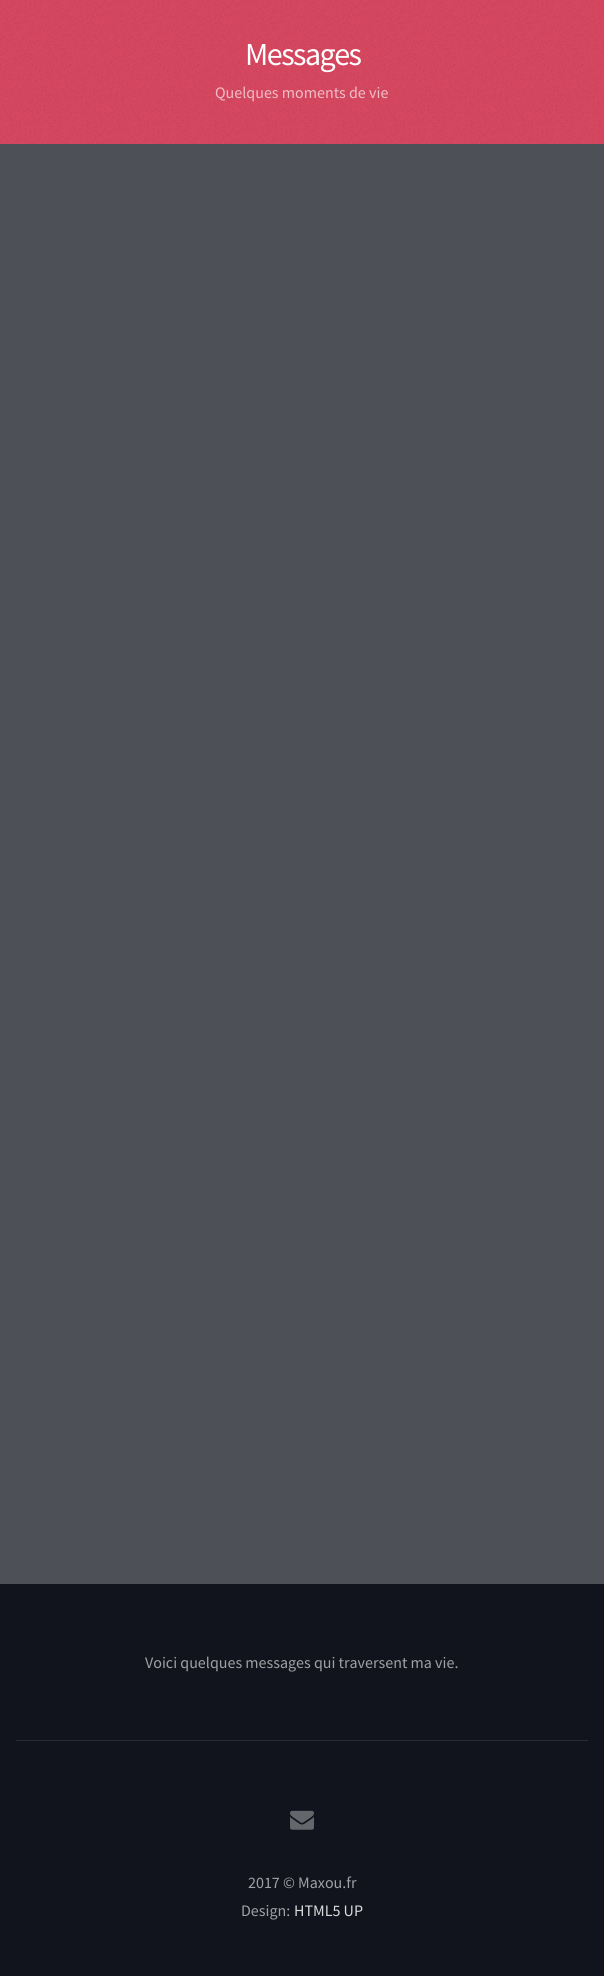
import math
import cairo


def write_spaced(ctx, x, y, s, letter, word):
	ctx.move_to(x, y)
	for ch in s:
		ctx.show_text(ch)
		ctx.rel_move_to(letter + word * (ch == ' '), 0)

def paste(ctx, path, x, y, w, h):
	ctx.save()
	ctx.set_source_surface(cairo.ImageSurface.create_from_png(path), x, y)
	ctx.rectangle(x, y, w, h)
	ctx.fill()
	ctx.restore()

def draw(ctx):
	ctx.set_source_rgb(0.071, 0.082, 0.114)
	ctx.paint()
	ctx.set_source_rgb(0.839, 0.278, 0.376)
	ctx.rectangle(0, 0, 604, 144)
	ctx.fill()
	paste(ctx, 'media/1.png', 0, 0, 604, 144)
	ctx.select_font_face('Source Sans Pro')
	ctx.set_font_size(32)
	ctx.set_source_rgb(1, 1, 1)
	write_spaced(ctx, 245, 65, 'Messages', -1.5, 0)
	ctx.set_font_size(16)
	ctx.set_source_rgb(0.941, 0.745, 0.78)
	ctx.move_to(215, 98)
	ctx.show_text('Quelques moments de vie')
	ctx.set_source_rgb(0.302, 0.314, 0.337)
	ctx.rectangle(0, 144, 604, 144)
	ctx.rectangle(0, 288, 604, 144)
	ctx.rectangle(0, 432, 604, 144)
	ctx.rectangle(0, 576, 604, 144)
	ctx.rectangle(0, 720, 604, 144)
	ctx.rectangle(0, 864, 604, 144)
	ctx.rectangle(0, 1008, 604, 144)
	ctx.rectangle(0, 1152, 604, 144)
	ctx.rectangle(0, 1296, 604, 144)
	ctx.rectangle(0, 1440, 604, 144)
	ctx.fill()
	ctx.set_source_rgb(0.627, 0.631, 0.647)
	ctx.move_to(145, 1668)
	ctx.show_text('Voici quelques messages qui traversent ma vie.')
	ctx.set_source_rgb(0.165, 0.173, 0.204)
	ctx.rectangle(16, 1740, 572, 1)
	ctx.fill()
	paste(ctx, 'media/2.png', 290, 1810, 24, 20)
	ctx.set_source_rgb(0.627, 0.631, 0.647)
	ctx.move_to(248, 1888)
	ctx.show_text('2017 © Maxou.fr')
	ctx.move_to(241, 1916)
	ctx.show_text('Design:')
	ctx.set_source_rgb(0.859, 0.863, 0.867)
	ctx.move_to(294, 1916)
	ctx.show_text('HTML5 UP')


surface = cairo.ImageSurface(cairo.FORMAT_RGB24, 604, 1976)
ctx = cairo.Context(surface)
options = cairo.FontOptions()
options.set_hint_metrics(cairo.HINT_METRICS_OFF)
options.set_hint_style(cairo.HINT_STYLE_NONE)
ctx.set_font_options(options)
ctx.set_miter_limit(4)
draw(ctx)
surface.write_to_png('image.png')
